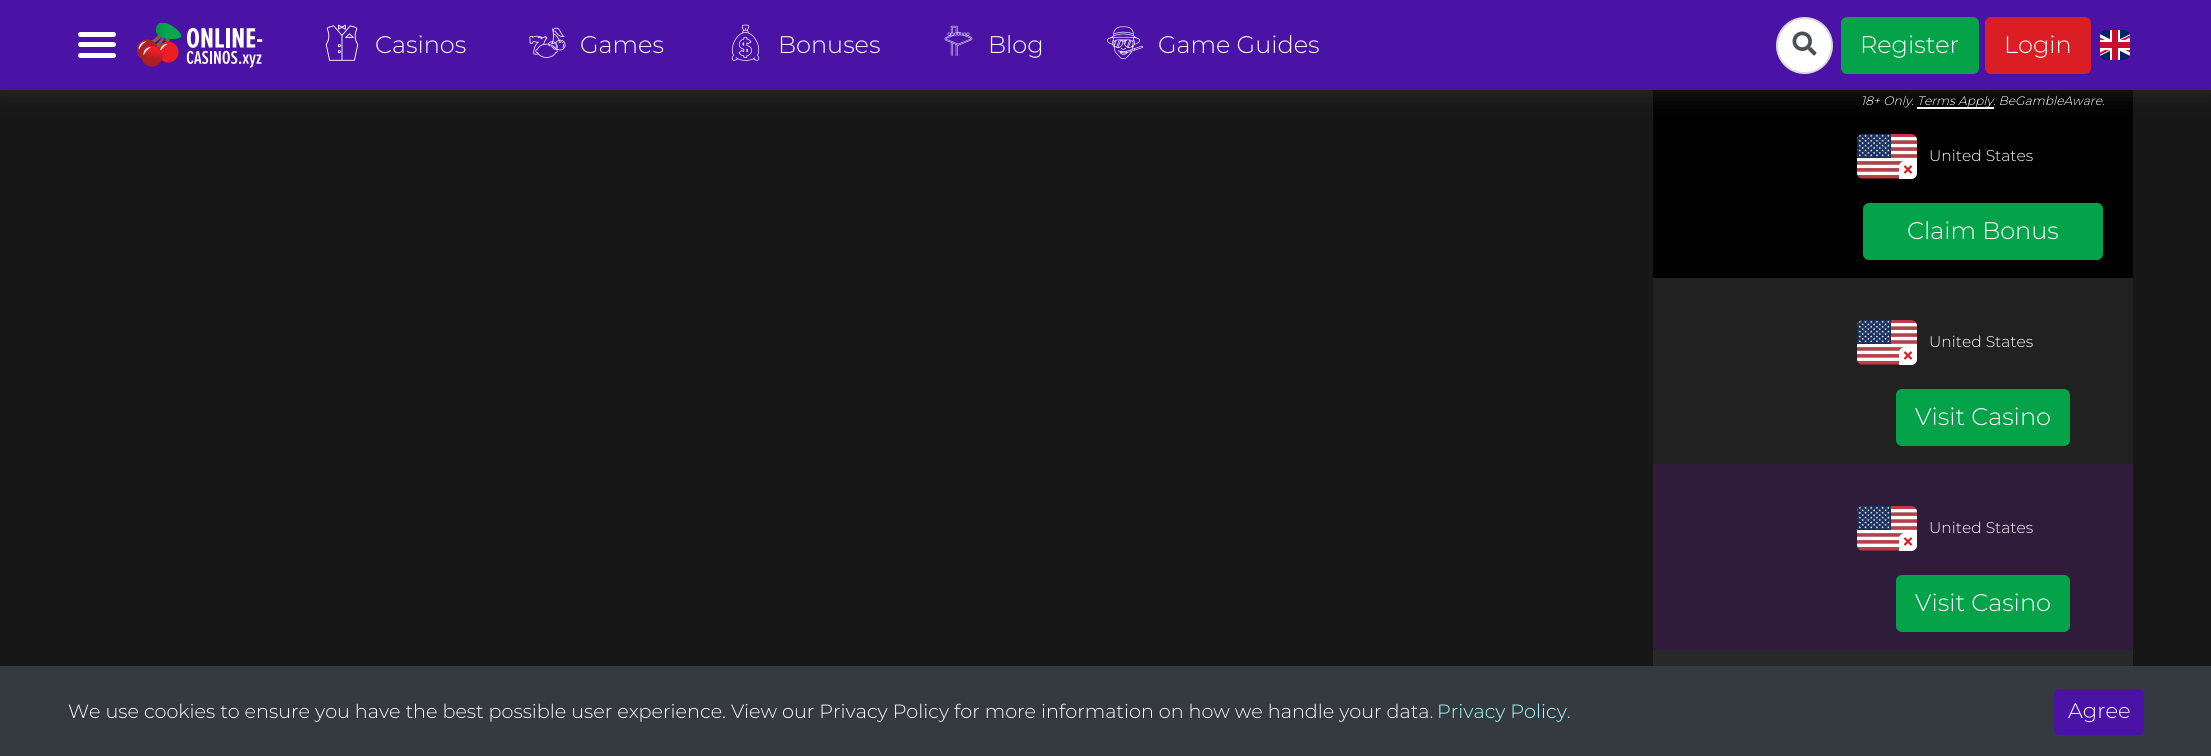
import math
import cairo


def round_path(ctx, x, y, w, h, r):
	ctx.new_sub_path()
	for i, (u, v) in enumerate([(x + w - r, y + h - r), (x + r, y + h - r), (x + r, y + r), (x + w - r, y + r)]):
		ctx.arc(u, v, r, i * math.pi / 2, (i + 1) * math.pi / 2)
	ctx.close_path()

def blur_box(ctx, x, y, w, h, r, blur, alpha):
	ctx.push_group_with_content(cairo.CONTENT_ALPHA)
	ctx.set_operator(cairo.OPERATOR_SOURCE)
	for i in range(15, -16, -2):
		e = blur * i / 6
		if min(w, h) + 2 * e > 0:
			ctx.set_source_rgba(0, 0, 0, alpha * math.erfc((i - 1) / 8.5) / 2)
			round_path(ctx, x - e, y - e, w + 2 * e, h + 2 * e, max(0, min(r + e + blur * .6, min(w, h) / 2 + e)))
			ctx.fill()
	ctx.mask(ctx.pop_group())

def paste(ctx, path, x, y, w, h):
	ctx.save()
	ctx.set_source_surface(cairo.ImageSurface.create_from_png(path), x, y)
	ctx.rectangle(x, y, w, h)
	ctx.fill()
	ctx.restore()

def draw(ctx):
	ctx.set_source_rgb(0.09, 0.09, 0.09)
	ctx.paint()
	ctx.set_source_rgb(0.004, 0.004, 0.004)
	ctx.rectangle(1653, 90, 480, 188)
	ctx.fill()
	ctx.set_source_rgb(1, 1, 1)
	ctx.rectangle(1917, 107, 77, 2)
	ctx.fill()
	ctx.set_source_rgb(0.235, 0.235, 0.235)
	blur_box(ctx, -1, -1, 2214, 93, 0, 11, 0.55)
	ctx.set_source_rgb(0.29, 0.075, 0.647)
	ctx.rectangle(0, 0, 2211, 90)
	ctx.fill()
	ctx.set_source_rgb(1, 1, 1)
	round_path(ctx, 78, 42, 38, 5, 2.5)
	ctx.fill()
	round_path(ctx, 78, 32, 38, 5, 2.5)
	ctx.fill()
	round_path(ctx, 78, 53, 38, 5, 2.5)
	ctx.fill()
	paste(ctx, 'media/1.png', 137, 23, 126, 45)
	paste(ctx, 'media/2.png', 325, 24, 34, 37)
	ctx.select_font_face('Montserrat Thin')
	ctx.set_font_size(24)
	ctx.move_to(375, 53)
	ctx.show_text('Casinos')
	paste(ctx, 'media/3.png', 529, 27, 37, 31)
	ctx.move_to(580, 53)
	ctx.show_text('Games')
	paste(ctx, 'media/4.png', 731, 24, 29, 37)
	ctx.move_to(778, 53)
	ctx.show_text('Bonuses')
	paste(ctx, 'media/5.png', 944, 25, 29, 31)
	ctx.move_to(988, 53)
	ctx.show_text('Blog')
	paste(ctx, 'media/6.png', 1107, 26, 36, 33)
	ctx.move_to(1158, 53)
	ctx.show_text('Game Guides')
	ctx.new_path()
	ctx.arc(1804.5, 45.5, 27.5, 0, 2 * math.pi)
	ctx.fill_preserve()
	ctx.set_source_rgb(0.847, 0.847, 0.847)
	ctx.stroke()
	paste(ctx, 'media/7.png', 1792, 31, 25, 25)
	ctx.set_source_rgb(0.016, 0.639, 0.29)
	round_path(ctx, 1842, 18, 136, 55, 5)
	ctx.fill_preserve()
	ctx.stroke()
	ctx.set_source_rgb(1, 1, 1)
	ctx.move_to(1860, 53)
	ctx.show_text('Register')
	ctx.set_source_rgb(0.859, 0.118, 0.141)
	round_path(ctx, 1986, 18, 104, 55, 5)
	ctx.fill_preserve()
	ctx.stroke()
	ctx.set_source_rgb(1, 1, 1)
	ctx.move_to(2004, 53)
	ctx.show_text('Login')
	paste(ctx, 'media/8.png', 2100, 30, 30, 30)
	ctx.select_font_face('Montserrat Thin', cairo.FONT_SLANT_ITALIC)
	ctx.set_font_size(12.25)
	ctx.move_to(1861, 105)
	ctx.show_text('18+ Only.')
	ctx.move_to(1917, 105)
	ctx.show_text('Terms Apply. BeGambleAware.')
	paste(ctx, 'media/9.png', 1857, 134, 60, 45)
	ctx.new_path()
	ctx.move_to(1905, 161)
	ctx.line_to(1917, 161)
	ctx.line_to(1917, 173)
	ctx.curve_to(1917, 176.5, 1914.5, 179, 1911, 179)
	ctx.line_to(1899, 179)
	ctx.line_to(1899, 167)
	ctx.curve_to(1899, 163.5, 1901.5, 161, 1905, 161)
	ctx.close_path()
	ctx.fill()
	paste(ctx, 'media/10.png', 1903, 165, 10, 9)
	ctx.select_font_face('Montserrat Thin')
	ctx.set_font_size(15.5)
	ctx.move_to(1929, 161)
	ctx.show_text('United States')
	ctx.set_source_rgb(0.016, 0.639, 0.29)
	round_path(ctx, 1864, 204, 238, 55, 5)
	ctx.fill_preserve()
	ctx.stroke()
	ctx.set_font_size(24)
	ctx.set_source_rgb(1, 1, 1)
	ctx.move_to(1907, 239)
	ctx.show_text('Claim Bonus')
	ctx.set_source_rgb(0.129, 0.129, 0.129)
	ctx.rectangle(1653, 278, 480, 186)
	ctx.fill()
	paste(ctx, 'media/11.png', 1857, 320, 60, 45)
	ctx.set_source_rgb(1, 1, 1)
	ctx.new_path()
	ctx.move_to(1905, 347)
	ctx.line_to(1917, 347)
	ctx.line_to(1917, 359)
	ctx.curve_to(1917, 362.5, 1914.5, 365, 1911, 365)
	ctx.line_to(1899, 365)
	ctx.line_to(1899, 353)
	ctx.curve_to(1899, 349.5, 1901.5, 347, 1905, 347)
	ctx.close_path()
	ctx.fill()
	paste(ctx, 'media/10.png', 1903, 351, 10, 9)
	ctx.set_font_size(15.5)
	ctx.move_to(1929, 347)
	ctx.show_text('United States')
	ctx.set_source_rgb(0.016, 0.639, 0.29)
	round_path(ctx, 1897, 390, 172, 55, 5)
	ctx.fill_preserve()
	ctx.stroke()
	ctx.set_font_size(24)
	ctx.set_source_rgb(1, 1, 1)
	ctx.move_to(1915, 425)
	ctx.show_text('Visit Casino')
	ctx.set_source_rgb(0.184, 0.11, 0.231)
	ctx.rectangle(1653, 464, 480, 186)
	ctx.fill()
	paste(ctx, 'media/12.png', 1857, 506, 60, 45)
	ctx.set_source_rgb(1, 1, 1)
	ctx.new_path()
	ctx.move_to(1905, 533)
	ctx.line_to(1917, 533)
	ctx.line_to(1917, 545)
	ctx.curve_to(1917, 548.5, 1914.5, 551, 1911, 551)
	ctx.line_to(1899, 551)
	ctx.line_to(1899, 539)
	ctx.curve_to(1899, 535.5, 1901.5, 533, 1905, 533)
	ctx.close_path()
	ctx.fill()
	paste(ctx, 'media/10.png', 1903, 537, 10, 9)
	ctx.set_font_size(15.5)
	ctx.move_to(1929, 533)
	ctx.show_text('United States')
	ctx.set_source_rgb(0.016, 0.639, 0.29)
	round_path(ctx, 1897, 576, 172, 55, 5)
	ctx.fill_preserve()
	ctx.stroke()
	ctx.set_font_size(24)
	ctx.set_source_rgb(1, 1, 1)
	ctx.move_to(1915, 611)
	ctx.show_text('Visit Casino')
	ctx.set_source_rgb(0.161, 0.161, 0.161)
	ctx.rectangle(1653, 650, 480, 16)
	ctx.fill()
	ctx.set_source_rgb(0.204, 0.227, 0.251)
	ctx.rectangle(0, 666, 2211, 90)
	ctx.fill()
	ctx.set_font_size(19.2)
	ctx.set_source_rgb(1, 1, 1)
	ctx.move_to(68, 718)
	ctx.show_text('We use cookies to ensure you have the best possible user experience. View our Privacy Policy for more information on how we handle your data.')
	ctx.set_source_rgb(0.663, 1, 1)
	ctx.move_to(1437, 718)
	ctx.show_text('Privacy Policy.')
	ctx.set_source_rgb(0.29, 0.075, 0.647)
	round_path(ctx, 2055, 690, 88, 44, 4)
	ctx.fill_preserve()
	ctx.stroke()
	ctx.set_font_size(21)
	ctx.set_source_rgb(1, 1, 1)
	ctx.move_to(2068, 718)
	ctx.show_text('Agree')


surface = cairo.ImageSurface(cairo.FORMAT_RGB24, 2211, 756)
ctx = cairo.Context(surface)
options = cairo.FontOptions()
options.set_hint_metrics(cairo.HINT_METRICS_OFF)
options.set_hint_style(cairo.HINT_STYLE_NONE)
ctx.set_font_options(options)
ctx.set_miter_limit(4)
draw(ctx)
surface.write_to_png('image.png')
